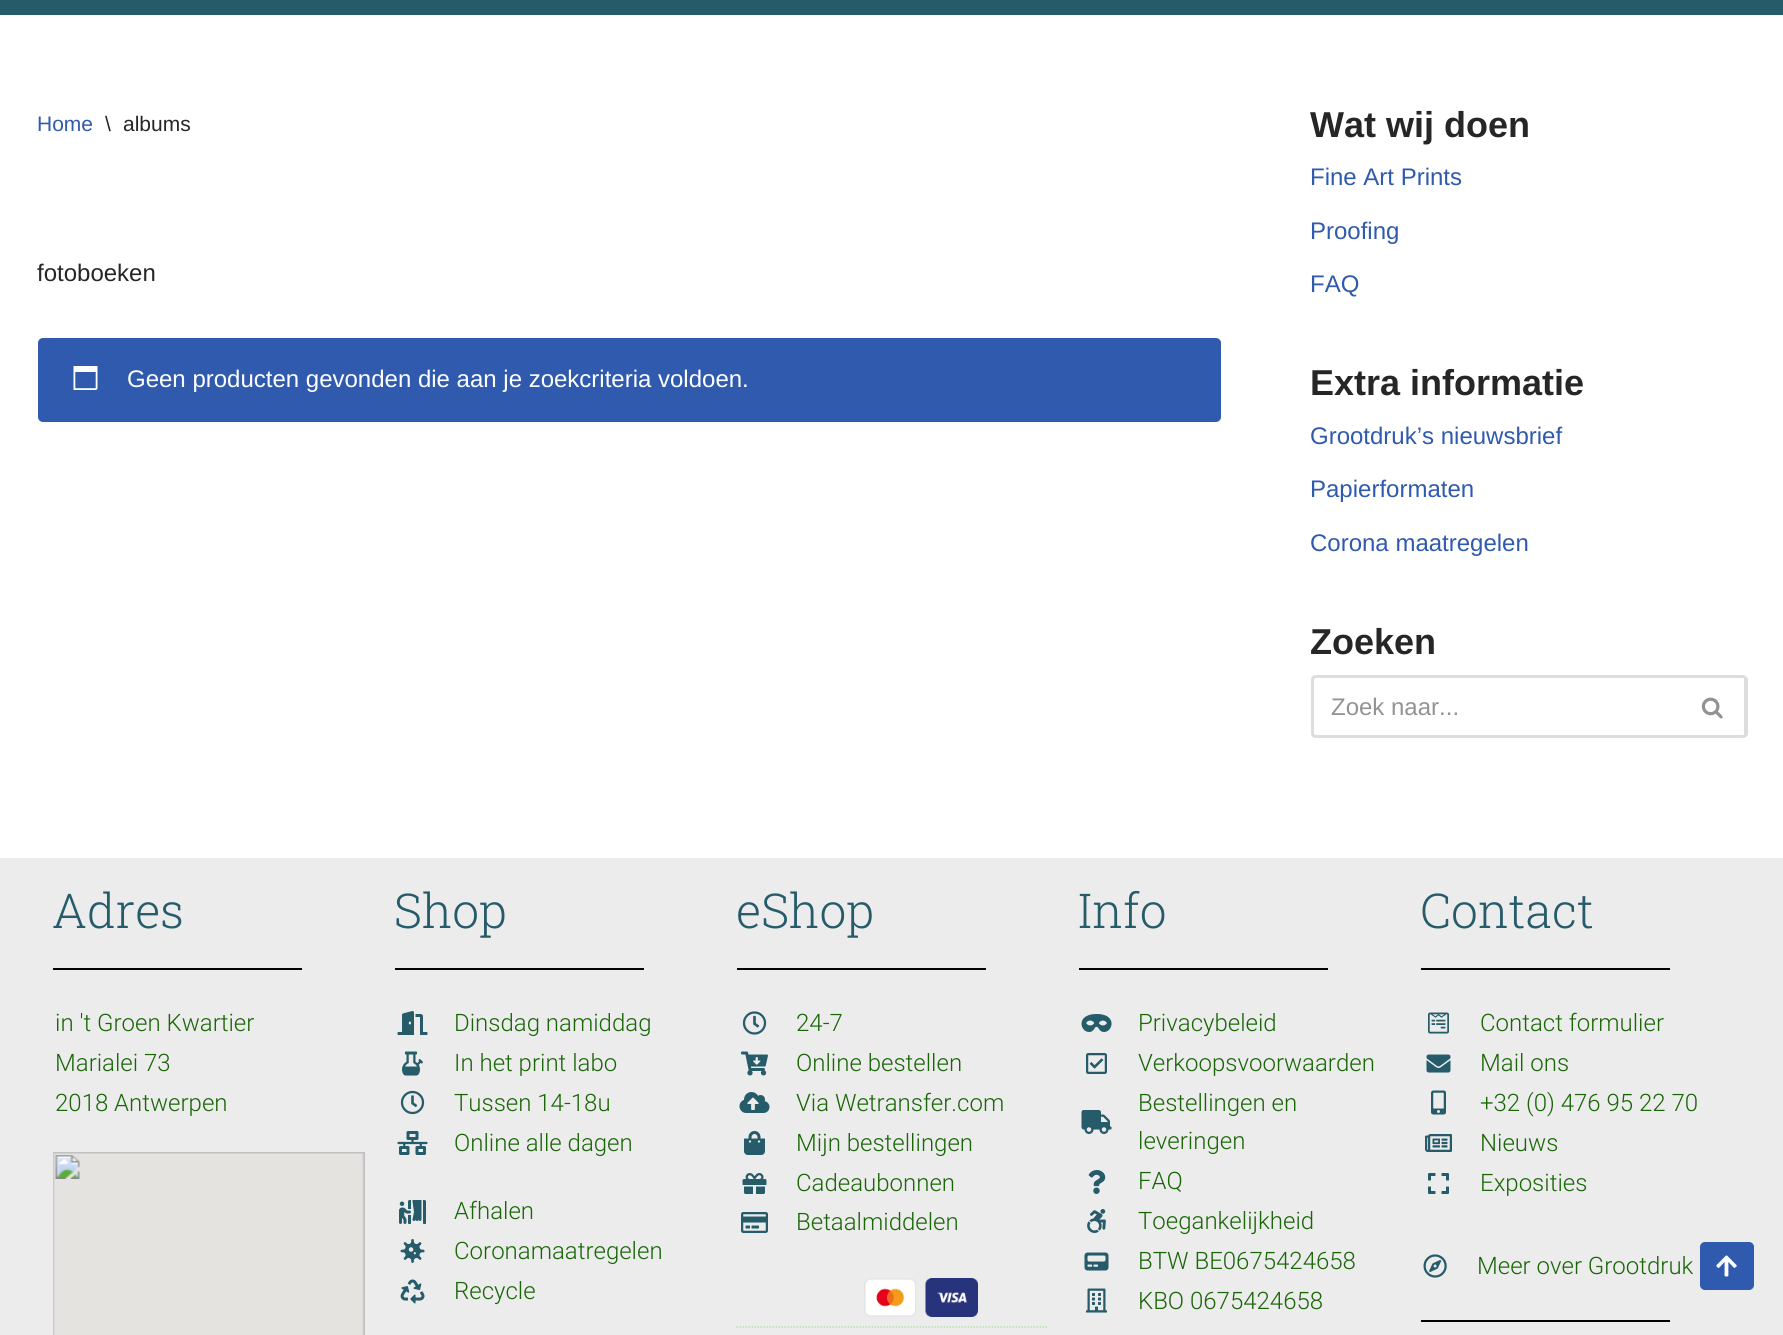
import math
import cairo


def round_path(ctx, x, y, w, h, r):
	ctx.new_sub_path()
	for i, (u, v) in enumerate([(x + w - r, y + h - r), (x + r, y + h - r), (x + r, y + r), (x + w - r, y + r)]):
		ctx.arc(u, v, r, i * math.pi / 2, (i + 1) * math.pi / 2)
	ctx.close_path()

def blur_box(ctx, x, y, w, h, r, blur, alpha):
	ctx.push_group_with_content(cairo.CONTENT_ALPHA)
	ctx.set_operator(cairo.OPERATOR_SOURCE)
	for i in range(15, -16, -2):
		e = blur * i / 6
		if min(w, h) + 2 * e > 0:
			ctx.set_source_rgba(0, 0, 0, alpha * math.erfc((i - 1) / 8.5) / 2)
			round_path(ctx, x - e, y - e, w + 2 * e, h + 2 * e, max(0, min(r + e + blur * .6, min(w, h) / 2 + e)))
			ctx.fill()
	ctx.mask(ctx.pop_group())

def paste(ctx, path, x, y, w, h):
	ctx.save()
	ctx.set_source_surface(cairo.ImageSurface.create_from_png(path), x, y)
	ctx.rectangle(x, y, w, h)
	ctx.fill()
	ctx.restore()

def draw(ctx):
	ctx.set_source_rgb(1, 1, 1)
	ctx.paint()
	ctx.set_source_rgb(0, 0, 0)
	blur_box(ctx, 0, -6, 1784, 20, 0, 2, 0.1)
	ctx.set_source_rgb(0.149, 0.357, 0.416)
	ctx.rectangle(0, 0, 1783, 15)
	ctx.fill()
	ctx.select_font_face('Liberation Sans')
	ctx.set_font_size(21)
	ctx.set_source_rgb(0.184, 0.353, 0.682)
	ctx.move_to(37, 131)
	ctx.show_text('Home')
	ctx.set_source_rgb(0.153, 0.149, 0.149)
	ctx.move_to(105, 131)
	ctx.show_text('\\')
	ctx.move_to(123, 131)
	ctx.show_text('albums')
	ctx.set_font_size(24)
	ctx.move_to(37, 281)
	ctx.show_text('fotoboeken')
	ctx.set_source_rgb(0.184, 0.353, 0.682)
	round_path(ctx, 38, 338, 1183, 84, 5)
	ctx.fill()
	paste(ctx, 'media/1.png', 73, 366, 25, 24)
	ctx.set_source_rgb(1, 1, 1)
	ctx.move_to(127, 387)
	ctx.show_text('Geen producten gevonden die aan je zoekcriteria voldoen.')
	ctx.select_font_face('Liberation Sans', cairo.FONT_SLANT_NORMAL, cairo.FONT_WEIGHT_BOLD)
	ctx.set_font_size(36)
	ctx.set_source_rgb(0.153, 0.149, 0.149)
	ctx.move_to(1310, 137)
	ctx.show_text('Wat wij doen')
	ctx.select_font_face('Liberation Sans')
	ctx.set_font_size(24)
	ctx.set_source_rgb(0.184, 0.353, 0.682)
	for x, y, s in [
		(1310, 185, 'Fine Art Prints'),
		(1310, 239, 'Proofing'),
		(1310, 292, 'FAQ'),
	]:
		ctx.move_to(x, y)
		ctx.show_text(s)
	ctx.select_font_face('Liberation Sans', cairo.FONT_SLANT_NORMAL, cairo.FONT_WEIGHT_BOLD)
	ctx.set_font_size(36)
	ctx.set_source_rgb(0.153, 0.149, 0.149)
	ctx.move_to(1310, 395)
	ctx.show_text('Extra informatie')
	ctx.select_font_face('Liberation Sans')
	ctx.set_font_size(24)
	ctx.set_source_rgb(0.184, 0.353, 0.682)
	for x, y, s in [
		(1310, 444, 'Grootdruk’s nieuwsbrief'),
		(1310, 497, 'Papierformaten'),
		(1310, 551, 'Corona maatregelen'),
	]:
		ctx.move_to(x, y)
		ctx.show_text(s)
	ctx.select_font_face('Liberation Sans', cairo.FONT_SLANT_NORMAL, cairo.FONT_WEIGHT_BOLD)
	ctx.set_font_size(36)
	ctx.set_source_rgb(0.153, 0.149, 0.149)
	ctx.move_to(1310, 654)
	ctx.show_text('Zoeken')
	ctx.set_source_rgb(0.867, 0.867, 0.867)
	ctx.set_fill_rule(cairo.FILL_RULE_EVEN_ODD)
	ctx.new_path()
	ctx.move_to(1316, 675)
	ctx.line_to(1680, 675)
	ctx.line_to(1680, 738)
	ctx.line_to(1316, 738)
	ctx.curve_to(1313, 738, 1311, 736, 1311, 734)
	ctx.line_to(1311, 680)
	ctx.curve_to(1311, 677, 1313, 675, 1316, 675)
	ctx.close_path()
	ctx.move_to(1316, 678)
	ctx.line_to(1680, 678)
	ctx.line_to(1680, 735)
	ctx.line_to(1316, 735)
	ctx.curve_to(1315, 735, 1314, 734, 1314, 734)
	ctx.line_to(1314, 680)
	ctx.curve_to(1314, 679, 1315, 678, 1316, 678)
	ctx.close_path()
	ctx.fill()
	ctx.select_font_face('Liberation Sans')
	ctx.set_font_size(24)
	ctx.set_source_rgb(0.576, 0.576, 0.576)
	ctx.move_to(1331, 715)
	ctx.show_text('Zoek naar...')
	ctx.set_source_rgb(0.867, 0.867, 0.867)
	ctx.new_path()
	ctx.move_to(1680, 675)
	ctx.line_to(1743, 675)
	ctx.curve_to(1745, 675, 1748, 677, 1748, 680)
	ctx.line_to(1748, 734)
	ctx.curve_to(1748, 736, 1745, 738, 1743, 738)
	ctx.line_to(1680, 738)
	ctx.close_path()
	ctx.move_to(1680, 678)
	ctx.line_to(1743, 678)
	ctx.curve_to(1744, 678, 1744, 679, 1744, 680)
	ctx.line_to(1744, 734)
	ctx.curve_to(1744, 734, 1744, 735, 1743, 735)
	ctx.line_to(1680, 735)
	ctx.close_path()
	ctx.fill()
	paste(ctx, 'media/2.png', 1701, 697, 22, 22)
	ctx.set_source_rgb(0.922, 0.922, 0.922)
	ctx.rectangle(0, 858, 1783, 477)
	ctx.fill()
	ctx.select_font_face('Roboto Slab Light')
	ctx.set_font_size(48)
	ctx.set_source_rgb(0.149, 0.357, 0.416)
	ctx.move_to(52, 928)
	ctx.show_text('Adres')
	ctx.set_source_rgb(0, 0, 0)
	ctx.rectangle(53, 968, 249, 2)
	ctx.fill()
	ctx.select_font_face('Roboto Light')
	ctx.set_font_size(24)
	ctx.set_source_rgb(0.098, 0.4, 0.031)
	for x, y, s in [
		(55, 1031, 'in \'t Groen Kwartier'),
		(55, 1071, 'Marialei 73'),
		(55, 1111, '2018 Antwerpen'),
	]:
		ctx.move_to(x, y)
		ctx.show_text(s)
	paste(ctx, 'media/3.png', 53, 1152, 312, 183)
	ctx.select_font_face('Roboto Slab Light')
	ctx.set_font_size(48)
	ctx.set_source_rgb(0.149, 0.357, 0.416)
	ctx.move_to(394, 928)
	ctx.show_text('Shop')
	ctx.set_source_rgb(0, 0, 0)
	ctx.rectangle(395, 968, 249, 2)
	ctx.fill()
	paste(ctx, 'media/4.png', 397, 1011, 31, 24)
	ctx.select_font_face('Roboto Light')
	ctx.set_font_size(24)
	ctx.set_source_rgb(0.098, 0.4, 0.031)
	ctx.move_to(454, 1031)
	ctx.show_text('Dinsdag namiddag')
	paste(ctx, 'media/5.png', 402, 1051, 21, 25)
	ctx.move_to(454, 1071)
	ctx.show_text('In het print labo')
	paste(ctx, 'media/6.png', 400, 1090, 25, 25)
	ctx.move_to(454, 1111)
	ctx.show_text('Tussen 14-18u')
	paste(ctx, 'media/7.png', 397, 1131, 31, 24)
	ctx.move_to(454, 1151)
	ctx.show_text('Online alle dagen')
	paste(ctx, 'media/8.png', 399, 1200, 27, 24)
	ctx.move_to(454, 1219)
	ctx.show_text('Afhalen')
	paste(ctx, 'media/9.png', 400, 1239, 25, 24)
	ctx.move_to(454, 1259)
	ctx.show_text('Coronamaatregelen')
	paste(ctx, 'media/10.png', 400, 1279, 25, 25)
	ctx.move_to(454, 1299)
	ctx.show_text('Recycle')
	ctx.select_font_face('Roboto Slab Light')
	ctx.set_font_size(48)
	ctx.set_source_rgb(0.149, 0.357, 0.416)
	ctx.move_to(736, 928)
	ctx.show_text('eShop')
	ctx.set_source_rgb(0, 0, 0)
	ctx.rectangle(737, 968, 249, 2)
	ctx.fill()
	paste(ctx, 'media/11.png', 742, 1011, 25, 24)
	ctx.select_font_face('Roboto Light')
	ctx.set_font_size(24)
	ctx.set_source_rgb(0.098, 0.4, 0.031)
	ctx.move_to(796, 1031)
	ctx.show_text('24-7')
	paste(ctx, 'media/12.png', 741, 1051, 27, 25)
	ctx.move_to(796, 1071)
	ctx.show_text('Online bestellen')
	paste(ctx, 'media/13.png', 739, 1092, 31, 21)
	ctx.move_to(796, 1111)
	ctx.show_text('Via Wetransfer.com')
	paste(ctx, 'media/14.png', 744, 1131, 21, 24)
	ctx.move_to(796, 1151)
	ctx.show_text('Mijn bestellingen')
	paste(ctx, 'media/15.png', 742, 1173, 25, 21)
	ctx.move_to(796, 1191)
	ctx.show_text('Cadeaubonnen')
	paste(ctx, 'media/16.png', 741, 1212, 27, 21)
	ctx.move_to(796, 1230)
	ctx.show_text('Betaalmiddelen')
	paste(ctx, 'media/17.png', 864, 1278, 52, 39)
	paste(ctx, 'media/18.png', 925, 1278, 53, 39)
	ctx.new_path()
	ctx.move_to(736.5, 1327)
	ctx.line_to(1048.5, 1327)
	ctx.set_source_rgb(0.702, 0.898, 0.671)
	ctx.set_line_width(1.5)
	ctx.set_dash([1.5, 1.5])
	ctx.stroke()
	ctx.select_font_face('Roboto Slab Light')
	ctx.set_font_size(48)
	ctx.set_source_rgb(0.149, 0.357, 0.416)
	ctx.move_to(1078, 928)
	ctx.show_text('Info')
	ctx.set_source_rgb(0, 0, 0)
	ctx.rectangle(1079, 968, 249, 2)
	ctx.fill()
	paste(ctx, 'media/19.png', 1081, 1014, 31, 18)
	ctx.select_font_face('Roboto Light')
	ctx.set_font_size(24)
	ctx.set_source_rgb(0.098, 0.4, 0.031)
	ctx.move_to(1138, 1031)
	ctx.show_text('Privacybeleid')
	paste(ctx, 'media/20.png', 1086, 1053, 21, 21)
	ctx.move_to(1138, 1071)
	ctx.show_text('Verkoopsvoorwaarden')
	paste(ctx, 'media/21.png', 1081, 1110, 31, 24)
	ctx.move_to(1138, 1111)
	ctx.show_text('Bestellingen en')
	ctx.move_to(1138, 1149)
	ctx.show_text('leveringen')
	paste(ctx, 'media/22.png', 1088, 1170, 18, 24)
	ctx.move_to(1138, 1189)
	ctx.show_text('FAQ')
	paste(ctx, 'media/23.png', 1087, 1209, 19, 24)
	ctx.move_to(1138, 1229)
	ctx.show_text('Toegankelijkheid')
	paste(ctx, 'media/24.png', 1084, 1252, 25, 19)
	ctx.move_to(1138, 1269)
	ctx.show_text('BTW BE0675424658')
	paste(ctx, 'media/25.png', 1086, 1288, 21, 25)
	ctx.move_to(1138, 1309)
	ctx.show_text('KBO 0675424658')
	ctx.select_font_face('Roboto Slab Light')
	ctx.set_font_size(48)
	ctx.set_source_rgb(0.149, 0.357, 0.416)
	ctx.move_to(1420, 928)
	ctx.show_text('Contact')
	ctx.set_source_rgb(0, 0, 0)
	ctx.rectangle(1421, 968, 249, 2)
	ctx.fill()
	paste(ctx, 'media/26.png', 1428, 1012, 21, 22)
	ctx.select_font_face('Roboto Light')
	ctx.set_font_size(24)
	ctx.set_source_rgb(0.098, 0.4, 0.031)
	ctx.move_to(1480, 1031)
	ctx.show_text('Contact formulier')
	paste(ctx, 'media/27.png', 1426, 1054, 25, 19)
	ctx.move_to(1480, 1071)
	ctx.show_text('Mail ons')
	paste(ctx, 'media/28.png', 1431, 1090, 15, 25)
	ctx.move_to(1480, 1111)
	ctx.show_text('+32 (0) 476 95 22 70')
	paste(ctx, 'media/29.png', 1425, 1134, 27, 18)
	ctx.move_to(1480, 1151)
	ctx.show_text('Nieuws')
	paste(ctx, 'media/30.png', 1428, 1173, 21, 21)
	ctx.move_to(1480, 1191)
	ctx.show_text('Exposities')
	paste(ctx, 'media/31.png', 1423, 1254, 24, 24)
	ctx.move_to(1477, 1274)
	ctx.show_text('Meer over Grootdruk')
	ctx.set_source_rgb(0, 0, 0)
	ctx.rectangle(1421, 1320, 249, 2)
	ctx.fill()
	ctx.set_source_rgb(0.184, 0.353, 0.682)
	round_path(ctx, 1700, 1242, 54, 48, 5)
	ctx.fill()
	paste(ctx, 'media/32.png', 1716, 1255, 21, 22)


surface = cairo.ImageSurface(cairo.FORMAT_RGB24, 1783, 1335)
ctx = cairo.Context(surface)
options = cairo.FontOptions()
options.set_hint_metrics(cairo.HINT_METRICS_OFF)
options.set_hint_style(cairo.HINT_STYLE_NONE)
ctx.set_font_options(options)
ctx.set_miter_limit(4)
draw(ctx)
surface.write_to_png('image.png')
